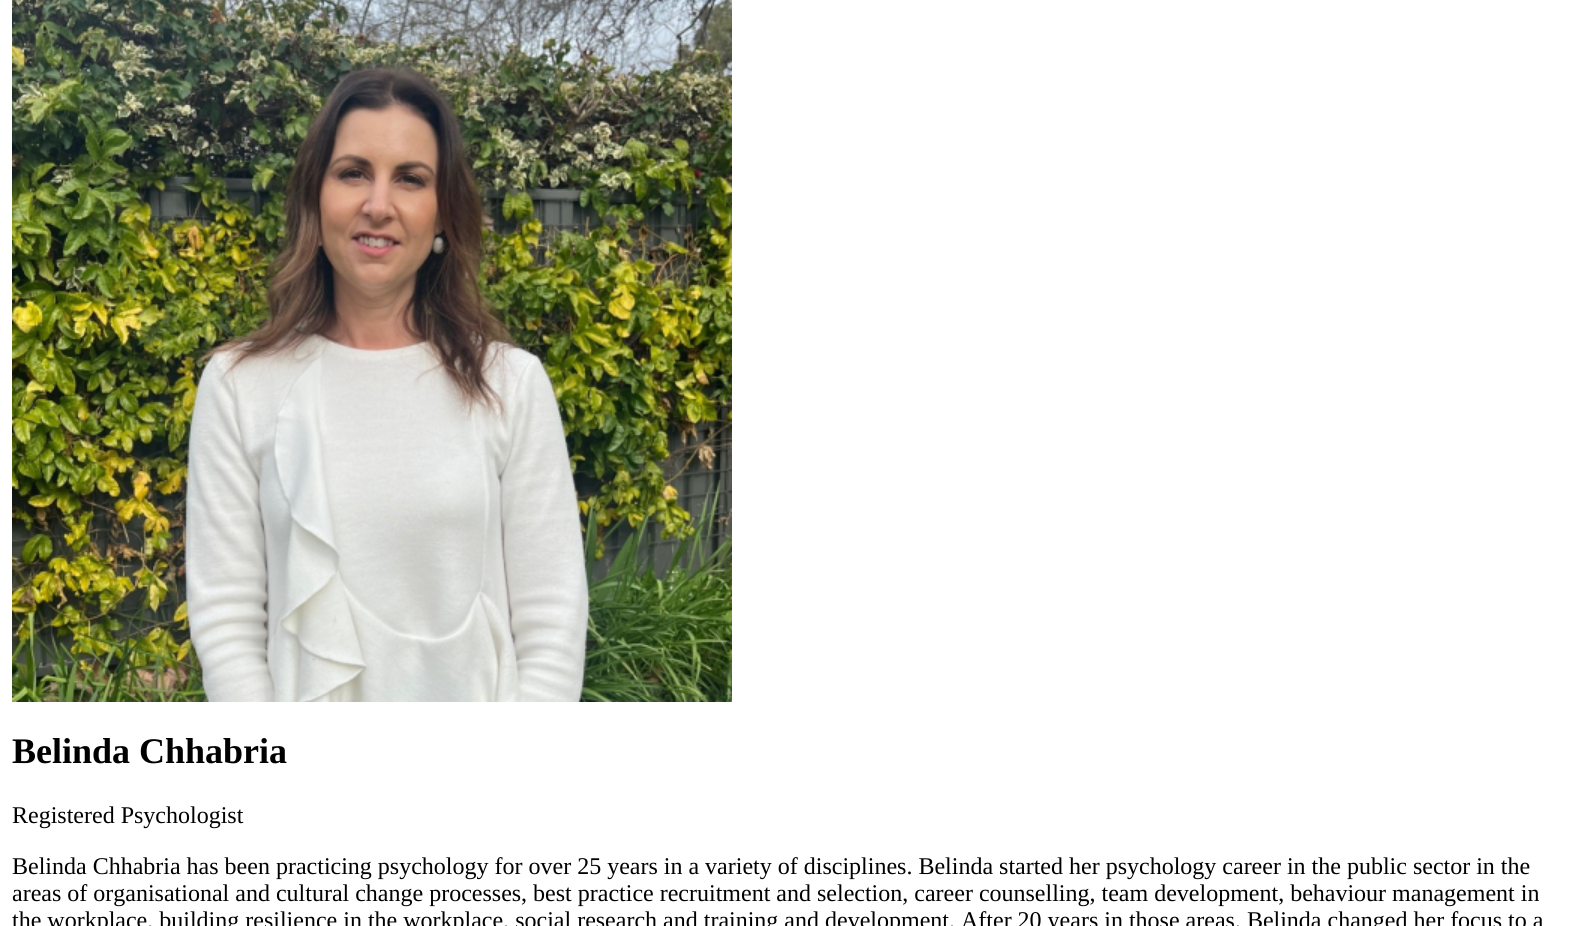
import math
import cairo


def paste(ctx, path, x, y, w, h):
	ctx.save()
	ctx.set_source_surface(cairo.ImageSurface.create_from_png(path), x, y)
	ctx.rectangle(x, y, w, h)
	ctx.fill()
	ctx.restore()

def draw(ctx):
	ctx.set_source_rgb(1, 1, 1)
	ctx.paint()
	paste(ctx, 'media/1.png', 12, 0, 720, 702)
	ctx.select_font_face('Liberation Serif', cairo.FONT_SLANT_NORMAL, cairo.FONT_WEIGHT_BOLD)
	ctx.set_font_size(36)
	ctx.set_source_rgb(0, 0, 0)
	ctx.move_to(12, 763)
	ctx.show_text('Belinda Chhabria')
	ctx.select_font_face('Liberation Serif')
	ctx.set_font_size(24)
	for x, y, s in [
		(12, 823, 'Registered Psychologist'),
		(12, 874, 'Belinda Chhabria has been practicing psychology for over 25 years in a variety of disciplines. Belinda started her psychology career in the public sector in the'),
		(12, 901, 'areas of organisational and cultural change processes, best practice recruitment and selection, career counselling, team development, behaviour management in'),
		(12, 928, 'the workplace, building resilience in the workplace, social research and training and development. After 20 years in those areas, Belinda changed her focus to a'),
	]:
		ctx.move_to(x, y)
		ctx.show_text(s)


surface = cairo.ImageSurface(cairo.FORMAT_RGB24, 1575, 926)
ctx = cairo.Context(surface)
options = cairo.FontOptions()
options.set_hint_metrics(cairo.HINT_METRICS_OFF)
options.set_hint_style(cairo.HINT_STYLE_NONE)
ctx.set_font_options(options)
ctx.set_miter_limit(4)
draw(ctx)
surface.write_to_png('image.png')
